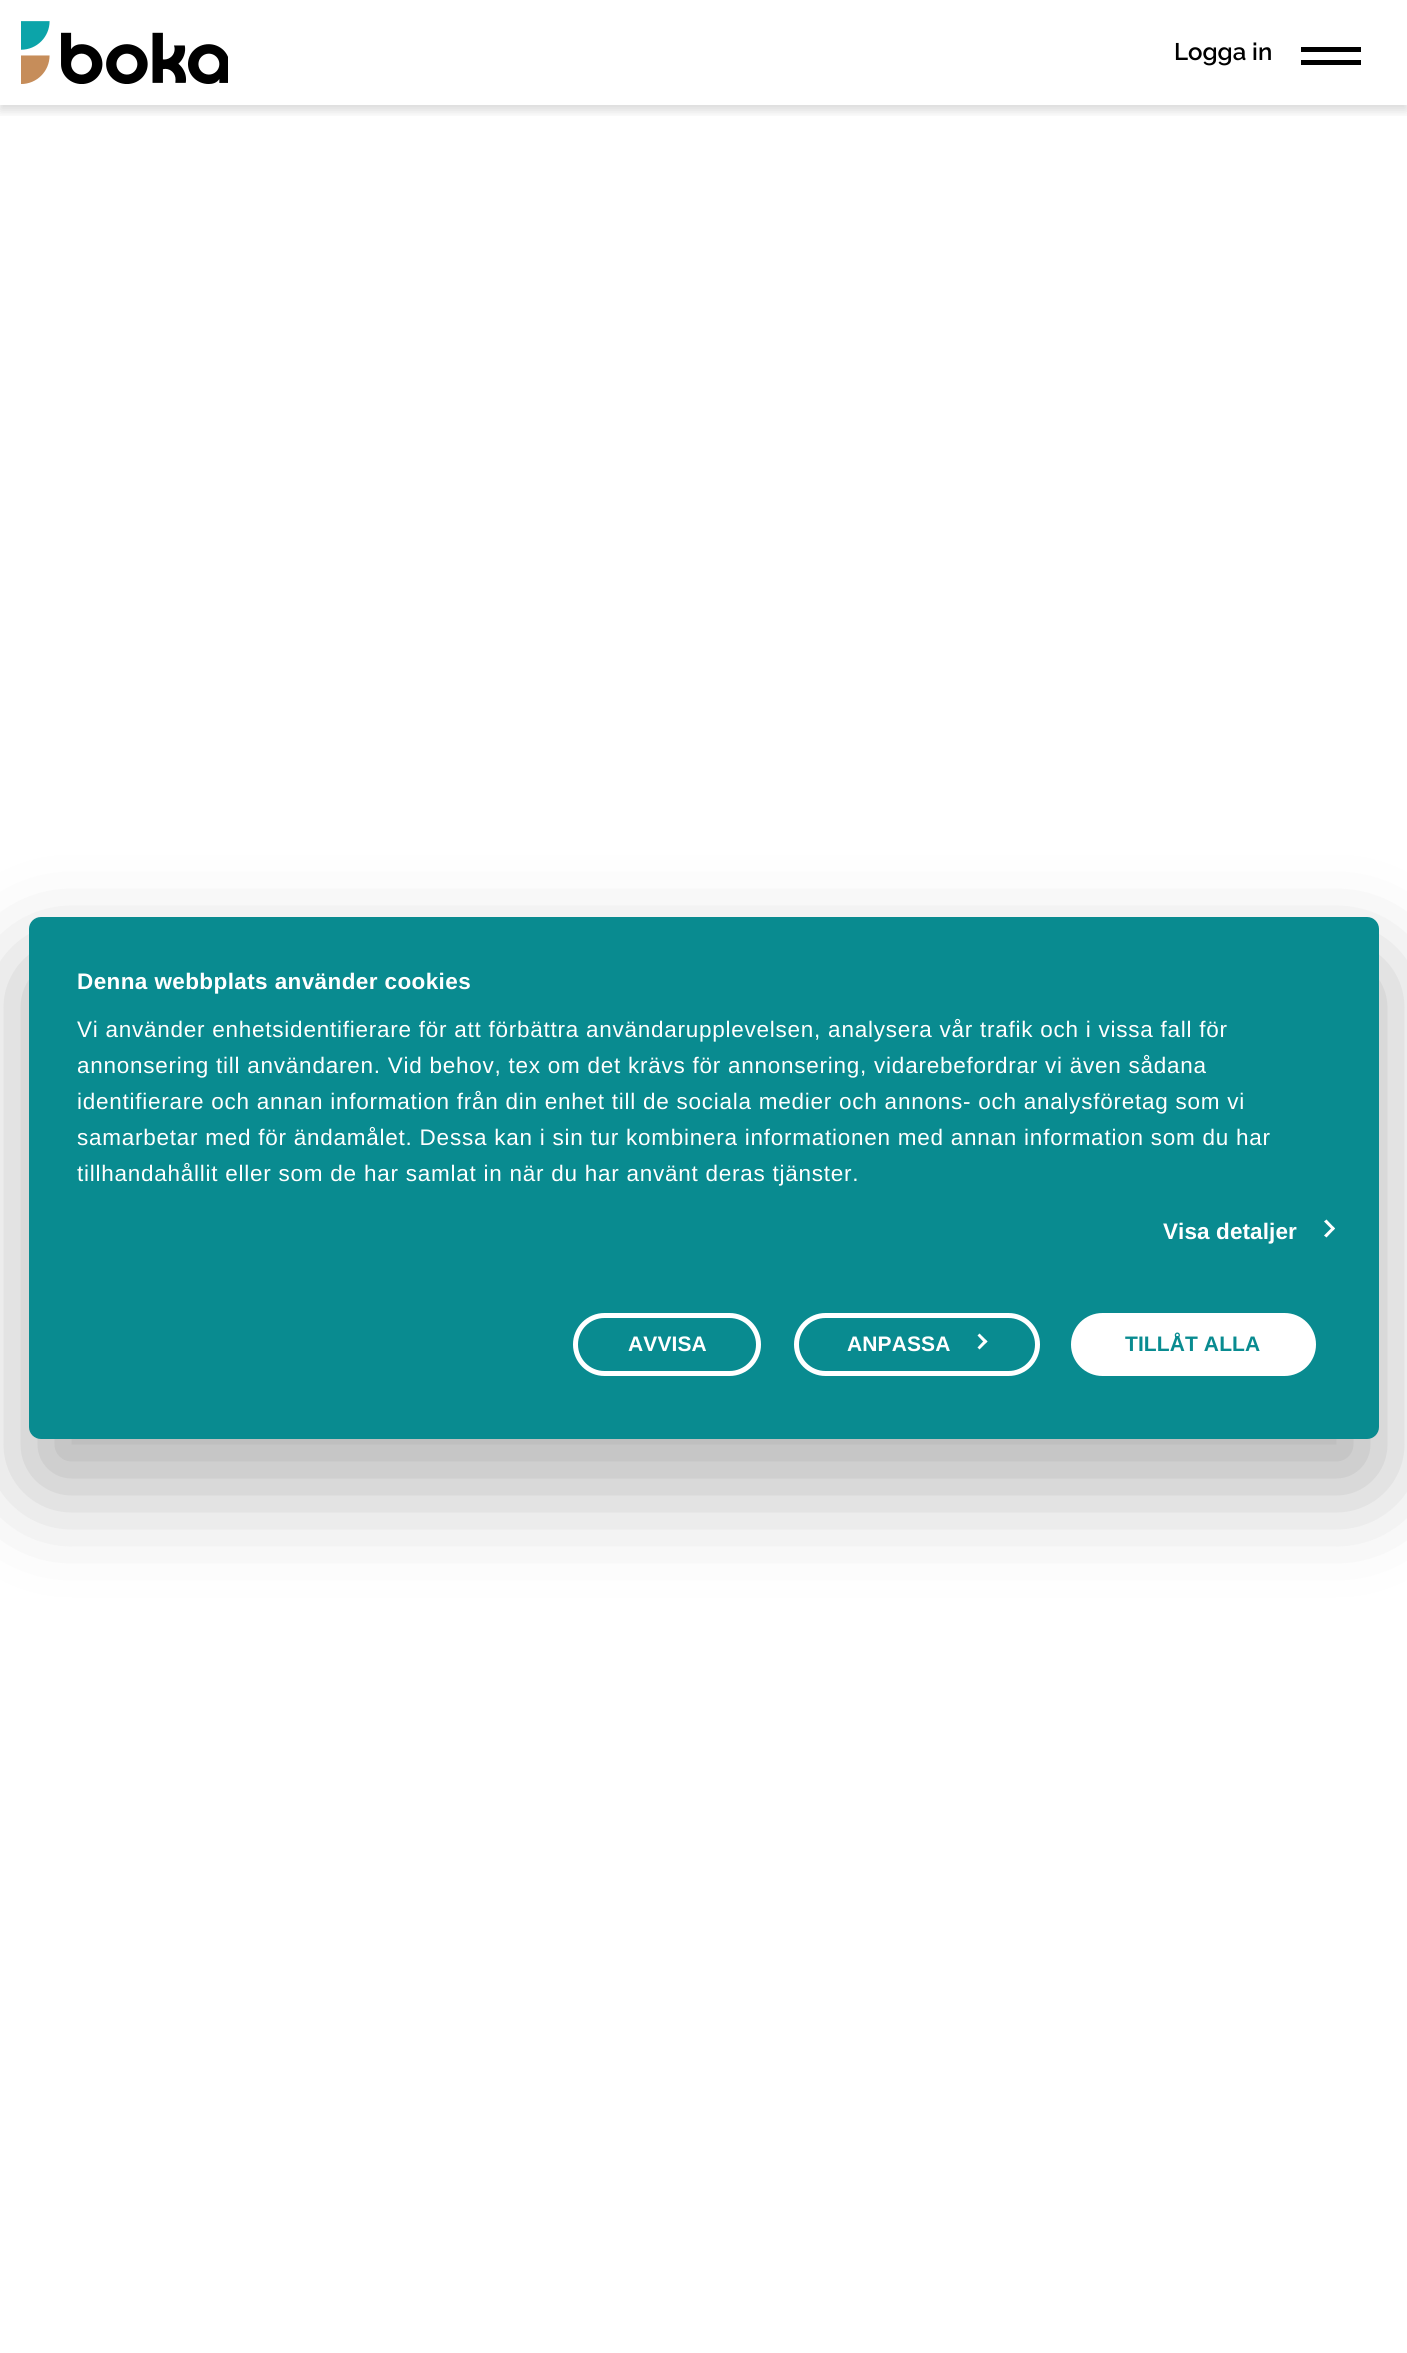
import math
import cairo


def write_spaced(ctx, x, y, s, letter, word):
	ctx.move_to(x, y)
	for ch in s:
		ctx.show_text(ch)
		ctx.rel_move_to(letter + word * (ch == ' '), 0)

def round_path(ctx, x, y, w, h, r):
	ctx.new_sub_path()
	for i, (u, v) in enumerate([(x + w - r, y + h - r), (x + r, y + h - r), (x + r, y + r), (x + w - r, y + r)]):
		ctx.arc(u, v, r, i * math.pi / 2, (i + 1) * math.pi / 2)
	ctx.close_path()

def blur_box(ctx, x, y, w, h, r, blur, alpha):
	ctx.push_group_with_content(cairo.CONTENT_ALPHA)
	ctx.set_operator(cairo.OPERATOR_SOURCE)
	for i in range(15, -16, -2):
		e = blur * i / 6
		if min(w, h) + 2 * e > 0:
			ctx.set_source_rgba(0, 0, 0, alpha * math.erfc((i - 1) / 8.5) / 2)
			round_path(ctx, x - e, y - e, w + 2 * e, h + 2 * e, max(0, min(r + e + blur * .6, min(w, h) / 2 + e)))
			ctx.fill()
	ctx.mask(ctx.pop_group())

def paste(ctx, path, x, y, w, h):
	ctx.save()
	ctx.set_source_surface(cairo.ImageSurface.create_from_png(path), x, y)
	ctx.rectangle(x, y, w, h)
	ctx.fill()
	ctx.restore()

def draw(ctx):
	ctx.set_source_rgb(1, 1, 1)
	ctx.paint()
	ctx.save()
	ctx.rectangle(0, 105, 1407, 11)
	ctx.clip()
	ctx.set_source_rgb(0, 0, 0)
	blur_box(ctx, 0, 5, 1407, 105, 0, 5.5, 0.16)
	ctx.restore()
	paste(ctx, 'media/1.png', 21, 21, 207, 63)
	ctx.select_font_face('Raleway SemiBold')
	ctx.set_font_size(24)
	ctx.set_source_rgb(0, 0, 0)
	ctx.move_to(1174, 60)
	ctx.show_text('Logga in')
	ctx.rectangle(1301, 47, 60, 5)
	ctx.fill()
	ctx.rectangle(1301, 60, 60, 5)
	ctx.fill()
	ctx.set_source_rgb(0, 0, 0)
	blur_box(ctx, 29, 965, 1350, 522, 12, 51, 0.3)
	ctx.set_source_rgb(0.039, 0.545, 0.565)
	round_path(ctx, 29, 917, 1350, 522, 12)
	ctx.fill()
	ctx.select_font_face('Liberation Sans', cairo.FONT_SLANT_NORMAL, cairo.FONT_WEIGHT_BOLD)
	ctx.set_font_size(22.5)
	ctx.set_source_rgb(1, 1, 1)
	write_spaced(ctx, 77, 989, 'Denna webbplats använder cookies', 0.4, 0)
	ctx.select_font_face('Liberation Sans')
	for x, y, s in [
		(77, 1037, 'Vi använder enhetsidentifierare för att förbättra användarupplevelsen, analysera vår trafik och i vissa fall för'),
		(77, 1073, 'annonsering till användaren. Vid behov, tex om det krävs för annonsering, vidarebefordrar vi även sådana'),
		(77, 1109, 'identifierare och annan information från din enhet till de sociala medier och annons- och analysföretag som vi'),
		(77, 1145, 'samarbetar med för ändamålet. Dessa kan i sin tur kombinera informationen med annan information som du har'),
		(77, 1181, 'tillhandahållit eller som de har samlat in när du har använt deras tjänster.'),
	]:
		write_spaced(ctx, x, y, s, 0.75, 0)
	ctx.select_font_face('Liberation Sans', cairo.FONT_SLANT_NORMAL, cairo.FONT_WEIGHT_BOLD)
	write_spaced(ctx, 1163, 1239, 'Visa detaljer', 0.1, 0)
	ctx.new_path()
	ctx.move_to(1326.5, 1219.5)
	ctx.line_to(1335, 1228.5)
	ctx.line_to(1333, 1230.5)
	ctx.line_to(1324, 1221.5)
	ctx.close_path()
	ctx.fill()
	ctx.new_path()
	ctx.move_to(1333, 1226.5)
	ctx.line_to(1335, 1228.5)
	ctx.line_to(1326.5, 1237.5)
	ctx.line_to(1324, 1235.5)
	ctx.close_path()
	ctx.fill()
	round_path(ctx, 575.5, 1315.5, 183, 58, 29)
	ctx.set_line_width(5)
	ctx.stroke()
	ctx.set_font_size(21)
	write_spaced(ctx, 628, 1351, 'AVVISA', 0.1, 0)
	round_path(ctx, 796.5, 1315.5, 241, 58, 29)
	ctx.stroke()
	write_spaced(ctx, 847, 1351, 'ANPASSA', 0.1, 0)
	ctx.new_path()
	ctx.move_to(979.5, 1333.5)
	ctx.line_to(987.5, 1341.5)
	ctx.line_to(985, 1343.5)
	ctx.line_to(977.5, 1335.5)
	ctx.close_path()
	ctx.fill()
	ctx.new_path()
	ctx.move_to(985, 1339.5)
	ctx.line_to(987.5, 1341.5)
	ctx.line_to(979.5, 1349.5)
	ctx.line_to(977.5, 1347.5)
	ctx.close_path()
	ctx.fill()
	round_path(ctx, 1073.5, 1315.5, 240, 58, 29)
	ctx.fill_preserve()
	ctx.stroke()
	ctx.set_source_rgb(0.039, 0.545, 0.565)
	write_spaced(ctx, 1125, 1351, 'TILLÅT ALLA', 0.1, 0)


surface = cairo.ImageSurface(cairo.FORMAT_RGB24, 1407, 2353)
ctx = cairo.Context(surface)
options = cairo.FontOptions()
options.set_hint_metrics(cairo.HINT_METRICS_OFF)
options.set_hint_style(cairo.HINT_STYLE_NONE)
ctx.set_font_options(options)
ctx.set_miter_limit(4)
draw(ctx)
surface.write_to_png('image.png')
